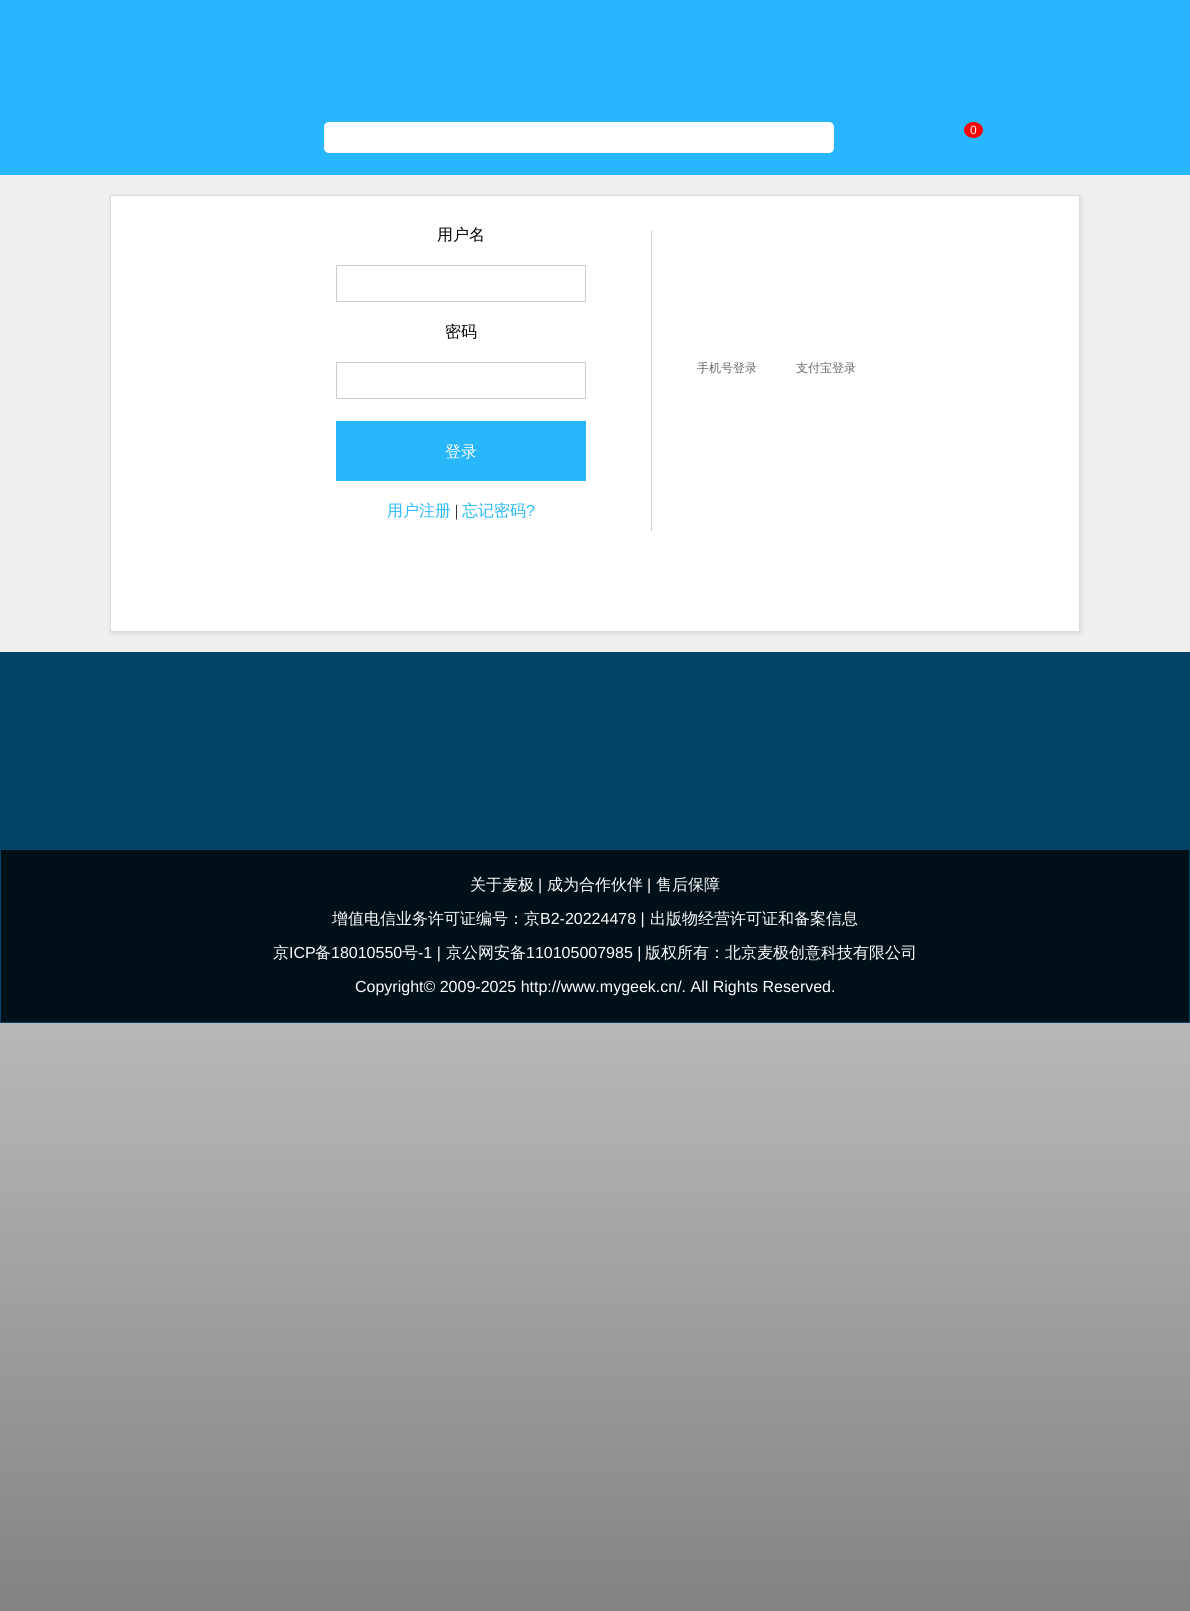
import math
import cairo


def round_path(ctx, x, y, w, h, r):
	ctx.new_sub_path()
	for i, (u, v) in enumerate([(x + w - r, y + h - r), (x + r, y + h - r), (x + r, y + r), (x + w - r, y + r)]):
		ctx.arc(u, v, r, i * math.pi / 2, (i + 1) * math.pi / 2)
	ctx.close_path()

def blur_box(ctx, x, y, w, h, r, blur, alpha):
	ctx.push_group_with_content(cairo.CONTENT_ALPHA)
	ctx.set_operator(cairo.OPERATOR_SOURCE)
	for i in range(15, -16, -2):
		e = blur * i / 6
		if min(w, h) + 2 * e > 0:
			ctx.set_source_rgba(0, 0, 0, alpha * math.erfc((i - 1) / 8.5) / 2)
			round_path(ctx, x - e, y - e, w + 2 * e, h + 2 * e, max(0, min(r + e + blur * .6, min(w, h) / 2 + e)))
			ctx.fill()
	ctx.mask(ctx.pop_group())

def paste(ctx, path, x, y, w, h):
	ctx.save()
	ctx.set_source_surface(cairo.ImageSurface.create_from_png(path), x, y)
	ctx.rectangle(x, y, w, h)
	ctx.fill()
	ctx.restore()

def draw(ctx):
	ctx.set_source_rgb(1, 1, 1)
	ctx.paint()
	paste(ctx, 'media/1.png', 0, 1023, 1190, 588)
	ctx.set_source_rgb(0.157, 0.714, 0.996)
	ctx.rectangle(0, 0, 1190, 175)
	ctx.fill()
	ctx.set_source_rgb(1, 1, 1)
	round_path(ctx, 324, 122, 510, 31, 5)
	ctx.fill()
	ctx.set_source_rgb(1, 0, 0)
	ctx.new_path()
	ctx.move_to(973.5, 122)
	ctx.curve_to(978.5, 122, 983, 125.5, 983, 130)
	ctx.curve_to(983, 134.5, 978.5, 138, 973.5, 138)
	ctx.curve_to(968.5, 138, 964, 134.5, 964, 130)
	ctx.curve_to(964, 125.5, 968.5, 122, 973.5, 122)
	ctx.close_path()
	ctx.fill()
	ctx.select_font_face('Liberation Sans')
	ctx.set_font_size(12)
	ctx.set_source_rgb(1, 1, 1)
	ctx.move_to(970, 134)
	ctx.show_text('0')
	ctx.set_source_rgb(0.937, 0.937, 0.937)
	ctx.rectangle(0, 175, 1190, 477)
	ctx.fill()
	ctx.set_source_rgb(0.871, 0.871, 0.871)
	blur_box(ctx, 112, 195, 970, 437, 0, 1.5, 1)
	blur_box(ctx, 110, 197, 970, 437, 0, 1.5, 1)
	ctx.set_source_rgb(0.933, 0.933, 0.933)
	blur_box(ctx, 110, 194, 970, 437, 0, 1, 1)
	ctx.set_source_rgb(1, 1, 1)
	ctx.rectangle(110.5, 195.5, 969, 436)
	ctx.fill_preserve()
	ctx.set_source_rgb(0.859, 0.859, 0.859)
	ctx.set_line_width(1)
	ctx.stroke()
	ctx.select_font_face('WenQuanYi Zen Hei Medium')
	ctx.set_font_size(16)
	ctx.set_source_rgb(0, 0, 0)
	ctx.move_to(437, 240)
	ctx.show_text('用户名')
	ctx.rectangle(336.5, 265.5, 249, 36)
	ctx.set_source_rgb(0.8, 0.8, 0.8)
	ctx.stroke()
	ctx.set_source_rgb(0, 0, 0)
	ctx.move_to(445, 337)
	ctx.show_text('密码')
	ctx.rectangle(336.5, 362.5, 249, 36)
	ctx.set_source_rgb(0.8, 0.8, 0.8)
	ctx.stroke()
	ctx.set_source_rgb(0.157, 0.718, 0.984)
	ctx.rectangle(336, 421, 250, 60)
	ctx.fill()
	ctx.set_source_rgb(1, 1, 1)
	ctx.move_to(445, 457)
	ctx.show_text('登录')
	ctx.set_source_rgb(0.153, 0.722, 0.976)
	ctx.move_to(387, 516)
	ctx.show_text('用户注册')
	ctx.select_font_face('Liberation Serif')
	ctx.set_source_rgb(0, 0, 0)
	ctx.move_to(455, 516)
	ctx.show_text('|')
	ctx.select_font_face('WenQuanYi Zen Hei Medium')
	ctx.set_source_rgb(0.153, 0.722, 0.976)
	ctx.move_to(462, 516)
	ctx.show_text('忘记密码')
	ctx.select_font_face('Liberation Sans')
	ctx.move_to(526, 516)
	ctx.show_text('?')
	ctx.set_source_rgb(0.8, 0.8, 0.8)
	ctx.rectangle(651, 231, 1, 300)
	ctx.fill()
	ctx.select_font_face('WenQuanYi Zen Hei Medium')
	ctx.set_font_size(12)
	ctx.set_source_rgb(0.4, 0.4, 0.4)
	ctx.move_to(697, 372)
	ctx.show_text('手机号登录')
	ctx.move_to(796, 372)
	ctx.show_text('支付宝登录')
	ctx.set_source_rgb(0.008, 0.267, 0.404)
	ctx.rectangle(0, 652, 1190, 371)
	ctx.fill()
	ctx.set_source_rgb(0, 0.063, 0.094)
	ctx.rectangle(1, 850, 1188, 172)
	ctx.fill()
	ctx.set_font_size(16)
	ctx.set_source_rgb(1, 1, 1)
	ctx.move_to(470, 890)
	ctx.show_text('关于麦极')
	ctx.select_font_face('Liberation Sans')
	ctx.move_to(538, 890)
	ctx.show_text('|')
	ctx.select_font_face('WenQuanYi Zen Hei Medium')
	ctx.move_to(547, 890)
	ctx.show_text('成为合作伙伴')
	ctx.select_font_face('Liberation Sans')
	ctx.move_to(647, 890)
	ctx.show_text('|')
	ctx.select_font_face('WenQuanYi Zen Hei Medium')
	ctx.move_to(656, 890)
	ctx.show_text('售后保障')
	ctx.move_to(332, 924)
	ctx.show_text('增值电信业务许可证编号：京')
	ctx.select_font_face('Liberation Sans')
	ctx.move_to(540, 924)
	ctx.show_text('B2-20224478 |')
	ctx.select_font_face('WenQuanYi Zen Hei Medium')
	ctx.move_to(650, 924)
	ctx.show_text('出版物经营许可证和备案信息')
	ctx.move_to(273, 958)
	ctx.show_text('京')
	ctx.select_font_face('Liberation Sans')
	ctx.move_to(289, 958)
	ctx.show_text('ICP')
	ctx.select_font_face('WenQuanYi Zen Hei Medium')
	ctx.move_to(315, 958)
	ctx.show_text('备')
	ctx.select_font_face('Liberation Sans')
	ctx.move_to(331, 958)
	ctx.show_text('18010550')
	ctx.select_font_face('WenQuanYi Zen Hei Medium')
	ctx.move_to(402, 958)
	ctx.show_text('号')
	ctx.select_font_face('Liberation Sans')
	ctx.move_to(418, 958)
	ctx.show_text('-1 |')
	ctx.select_font_face('WenQuanYi Zen Hei Medium')
	ctx.move_to(446, 958)
	ctx.show_text('京公网安备')
	ctx.select_font_face('Liberation Sans')
	ctx.move_to(526, 958)
	ctx.show_text('110105007985 |')
	ctx.select_font_face('WenQuanYi Zen Hei Medium')
	ctx.move_to(645, 958)
	ctx.show_text('版权所有：北京麦极创意科技有限公司')
	ctx.select_font_face('Liberation Sans')
	ctx.move_to(355, 992)
	ctx.show_text('Copyright© 2009-2025 http://www.mygeek.cn/. All Rights Reserved.')


surface = cairo.ImageSurface(cairo.FORMAT_RGB24, 1190, 1611)
ctx = cairo.Context(surface)
options = cairo.FontOptions()
options.set_hint_metrics(cairo.HINT_METRICS_OFF)
options.set_hint_style(cairo.HINT_STYLE_NONE)
ctx.set_font_options(options)
ctx.set_miter_limit(4)
draw(ctx)
surface.write_to_png('image.png')
